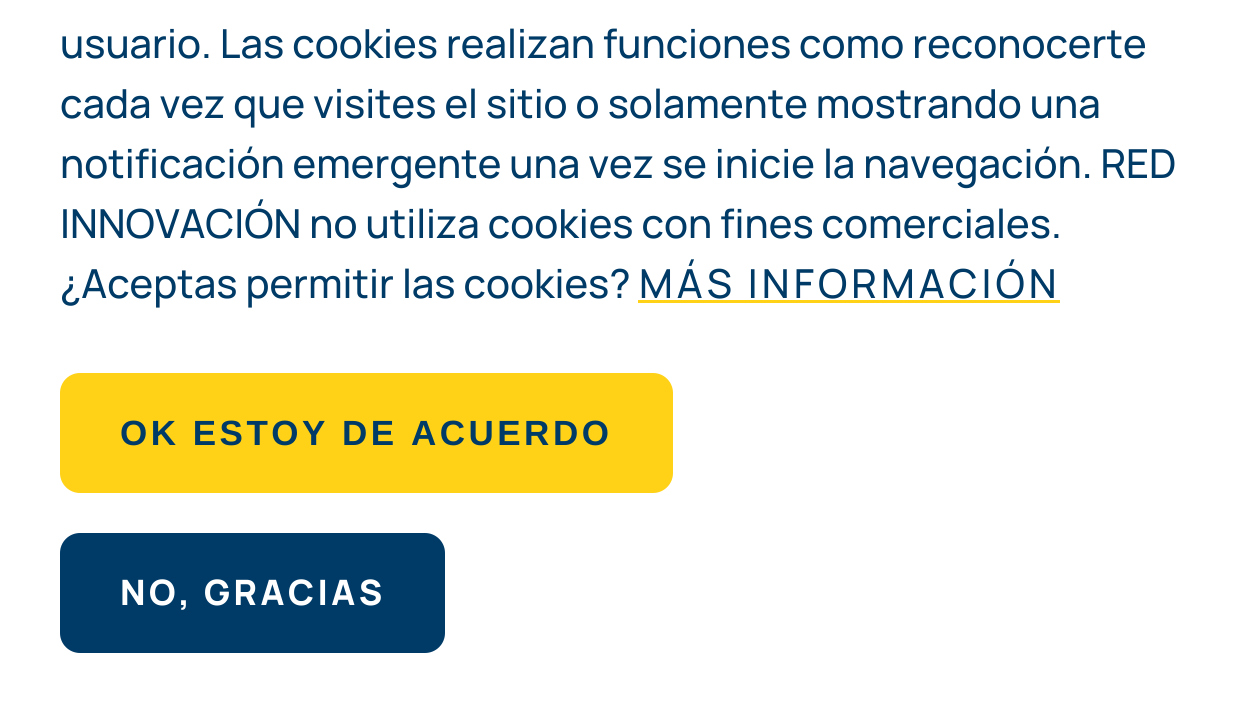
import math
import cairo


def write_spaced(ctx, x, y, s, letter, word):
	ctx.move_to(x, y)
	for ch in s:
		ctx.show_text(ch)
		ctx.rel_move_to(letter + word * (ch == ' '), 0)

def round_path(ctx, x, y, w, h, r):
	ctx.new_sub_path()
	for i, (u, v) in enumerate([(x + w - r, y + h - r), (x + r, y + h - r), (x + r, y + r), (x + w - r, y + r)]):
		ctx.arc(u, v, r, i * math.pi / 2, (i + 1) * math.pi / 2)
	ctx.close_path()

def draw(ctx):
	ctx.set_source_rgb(1, 1, 1)
	ctx.paint()
	ctx.select_font_face('Manrope Medium')
	ctx.set_font_size(40)
	ctx.set_source_rgb(0, 0.231, 0.404)
	for x, y, s in [
		(60, 58, 'usuario. Las cookies realizan funciones como reconocerte'),
		(60, 118, 'cada vez que visites el sitio o solamente mostrando una'),
		(60, 178, 'notificación emergente una vez se inicie la navegación. RED'),
		(60, 238, 'INNOVACIÓN no utiliza cookies con fines comerciales.'),
		(60, 298, '¿Aceptas permitir las cookies?'),
	]:
		ctx.move_to(x, y)
		ctx.show_text(s)
	write_spaced(ctx, 639, 298, 'MÁS INFORMACIÓN', 4, 0)
	ctx.set_source_rgb(1, 0.82, 0.09)
	ctx.rectangle(638, 300, 422, 3)
	ctx.fill()
	round_path(ctx, 60, 373, 613, 120, 20)
	ctx.fill()
	ctx.select_font_face('Liberation Sans', cairo.FONT_SLANT_NORMAL, cairo.FONT_WEIGHT_BOLD)
	ctx.set_font_size(35)
	ctx.set_source_rgb(0, 0.231, 0.404)
	write_spaced(ctx, 120, 445, 'OK ESTOY DE ACUERDO', 3.5, 0)
	round_path(ctx, 60, 533, 385, 120, 20)
	ctx.fill()
	ctx.select_font_face('Manrope ExtraBold')
	ctx.set_source_rgb(1, 1, 1)
	write_spaced(ctx, 120, 605, 'NO, GRACIAS', 3.5, 0)


surface = cairo.ImageSurface(cairo.FORMAT_RGB24, 1241, 711)
ctx = cairo.Context(surface)
options = cairo.FontOptions()
options.set_hint_metrics(cairo.HINT_METRICS_OFF)
options.set_hint_style(cairo.HINT_STYLE_NONE)
ctx.set_font_options(options)
ctx.set_miter_limit(4)
draw(ctx)
surface.write_to_png('image.png')
